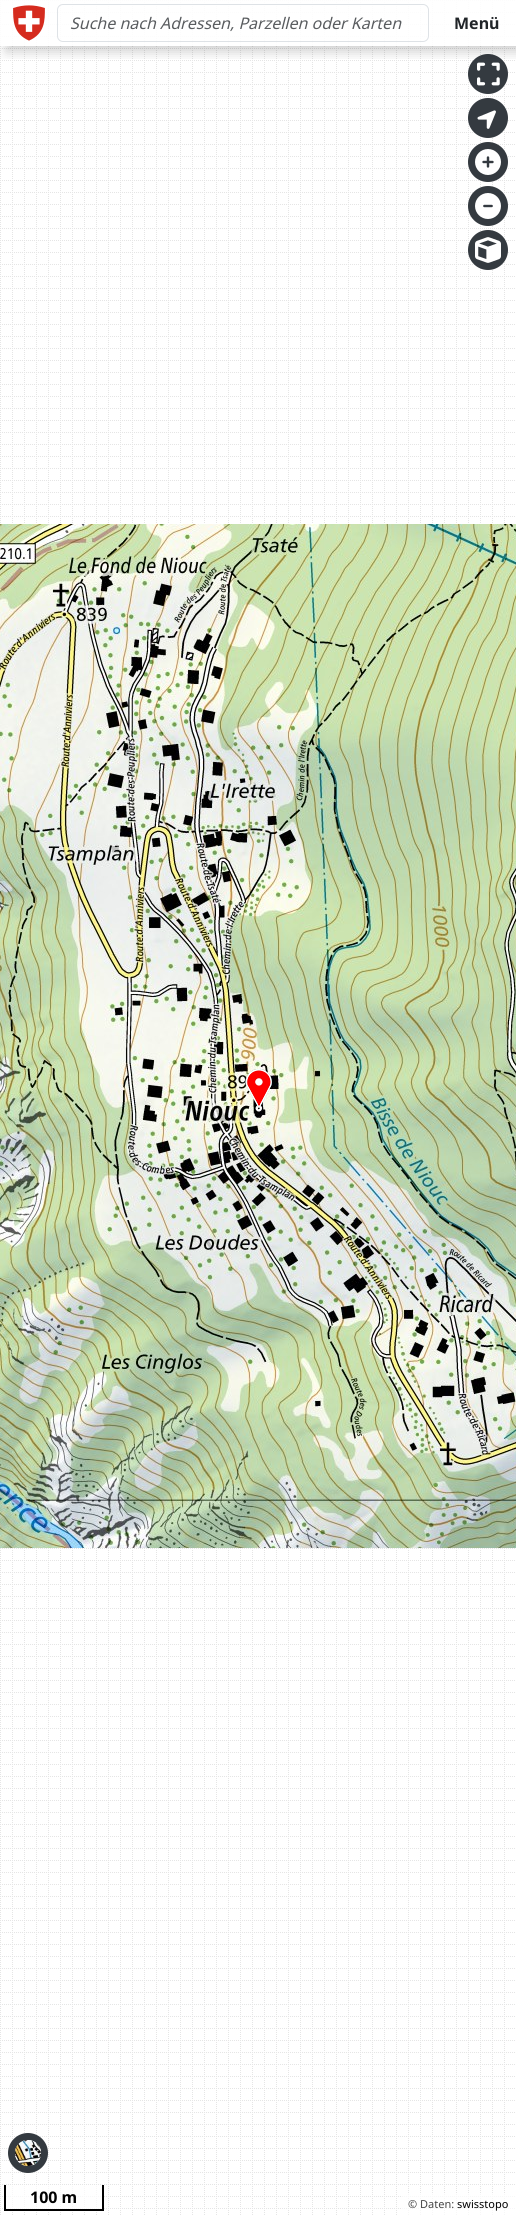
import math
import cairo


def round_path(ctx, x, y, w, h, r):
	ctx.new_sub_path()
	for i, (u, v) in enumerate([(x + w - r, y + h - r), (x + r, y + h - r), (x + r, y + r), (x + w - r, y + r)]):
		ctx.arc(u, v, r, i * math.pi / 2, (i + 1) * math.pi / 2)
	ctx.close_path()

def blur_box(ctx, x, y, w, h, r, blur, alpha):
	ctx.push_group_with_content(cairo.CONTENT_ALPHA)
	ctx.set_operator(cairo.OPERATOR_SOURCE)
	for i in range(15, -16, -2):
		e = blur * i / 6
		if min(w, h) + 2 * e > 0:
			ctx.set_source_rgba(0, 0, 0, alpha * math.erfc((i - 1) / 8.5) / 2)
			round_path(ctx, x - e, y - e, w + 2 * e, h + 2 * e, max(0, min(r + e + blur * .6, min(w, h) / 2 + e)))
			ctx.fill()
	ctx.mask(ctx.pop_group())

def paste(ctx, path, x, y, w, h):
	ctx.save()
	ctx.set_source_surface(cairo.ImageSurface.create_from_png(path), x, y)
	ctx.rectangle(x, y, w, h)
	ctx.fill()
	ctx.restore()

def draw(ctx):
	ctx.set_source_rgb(1, 1, 1)
	ctx.paint()
	paste(ctx, 'media/1.png', 0, 0, 515, 2215)
	ctx.set_source_rgb(0.204, 0.227, 0.251)
	ctx.arc(488, 74, 20, 0, 2 * math.pi)
	ctx.fill()
	paste(ctx, 'media/3.png', 477, 62, 23, 24)
	ctx.save()
	ctx.rectangle(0, 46, 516, 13)
	ctx.clip()
	ctx.set_source_rgb(0, 0, 0)
	blur_box(ctx, 6, 6, 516, 46, 0, 6, 0.18)
	ctx.restore()
	ctx.set_source_rgba(1, 1, 1, 0.9)
	ctx.rectangle(0, 0, 515, 45)
	ctx.fill()
	paste(ctx, 'media/2.png', 13, 5, 32, 36)
	round_path(ctx, 57.5, 4.5, 371, 37, 5.5)
	ctx.set_source_rgb(0.871, 0.886, 0.902)
	ctx.set_line_width(1)
	ctx.stroke()
	ctx.select_font_face('Noto Sans', cairo.FONT_SLANT_ITALIC)
	ctx.set_font_size(16)
	ctx.set_source_rgb(0.349, 0.361, 0.373)
	ctx.move_to(70, 29)
	ctx.show_text('Suche nach Adressen, Parzellen oder Karten')
	ctx.select_font_face('Noto Sans', cairo.FONT_SLANT_NORMAL, cairo.FONT_WEIGHT_BOLD)
	ctx.set_source_rgb(0.129, 0.145, 0.161)
	ctx.move_to(454, 29)
	ctx.show_text('Menü')
	ctx.set_source_rgb(0.204, 0.227, 0.251)
	ctx.new_path()
	ctx.arc(488, 118, 20, 0, 2 * math.pi)
	ctx.fill()
	paste(ctx, 'media/4.png', 477, 110, 19, 19)
	ctx.arc(488, 162, 20, 0, 2 * math.pi)
	ctx.fill()
	paste(ctx, 'media/5.png', 475, 149, 26, 26)
	ctx.arc(488, 206, 20, 0, 2 * math.pi)
	ctx.fill()
	paste(ctx, 'media/6.png', 475, 193, 26, 26)
	ctx.arc(488, 250, 20, 0, 2 * math.pi)
	ctx.fill()
	paste(ctx, 'media/7.png', 475, 237, 26, 26)
	paste(ctx, 'media/8.png', 0, 524, 516, 1024)
	ctx.arc(28, 2153, 16.5, 0, 2 * math.pi)
	ctx.set_line_width(7)
	ctx.stroke()
	paste(ctx, 'media/9.png', 15, 2140, 25, 25)
	paste(ctx, 'media/10.png', 15, 2140, 26, 26)
	ctx.set_source_rgba(1, 1, 1, 0.7)
	ctx.rectangle(6, 2186, 95, 23)
	ctx.fill()
	ctx.set_source_rgb(0, 0, 0)
	ctx.rectangle(102, 2185, 2, 26)
	ctx.rectangle(4, 2209, 100, 2)
	ctx.rectangle(4, 2185, 2, 26)
	ctx.fill()
	ctx.move_to(30, 2203)
	ctx.show_text('100 m')
	ctx.set_source_rgba(1, 1, 1, 0.7)
	ctx.new_path()
	ctx.move_to(407, 2194)
	ctx.line_to(516, 2194)
	ctx.line_to(516, 2215)
	ctx.line_to(401, 2215)
	ctx.line_to(401, 2200)
	ctx.curve_to(401, 2196.5, 403.5, 2194, 407, 2194)
	ctx.close_path()
	ctx.fill()
	ctx.select_font_face('Noto Sans')
	ctx.set_font_size(11)
	ctx.set_source_rgb(0.271, 0.271, 0.271)
	ctx.move_to(408, 2208)
	ctx.show_text('© Daten:')
	ctx.set_source_rgb(0, 0, 0)
	ctx.move_to(457, 2208)
	ctx.show_text('swisstopo')


surface = cairo.ImageSurface(cairo.FORMAT_RGB24, 516, 2215)
ctx = cairo.Context(surface)
options = cairo.FontOptions()
options.set_hint_metrics(cairo.HINT_METRICS_OFF)
options.set_hint_style(cairo.HINT_STYLE_NONE)
ctx.set_font_options(options)
ctx.set_miter_limit(4)
draw(ctx)
surface.write_to_png('image.png')
